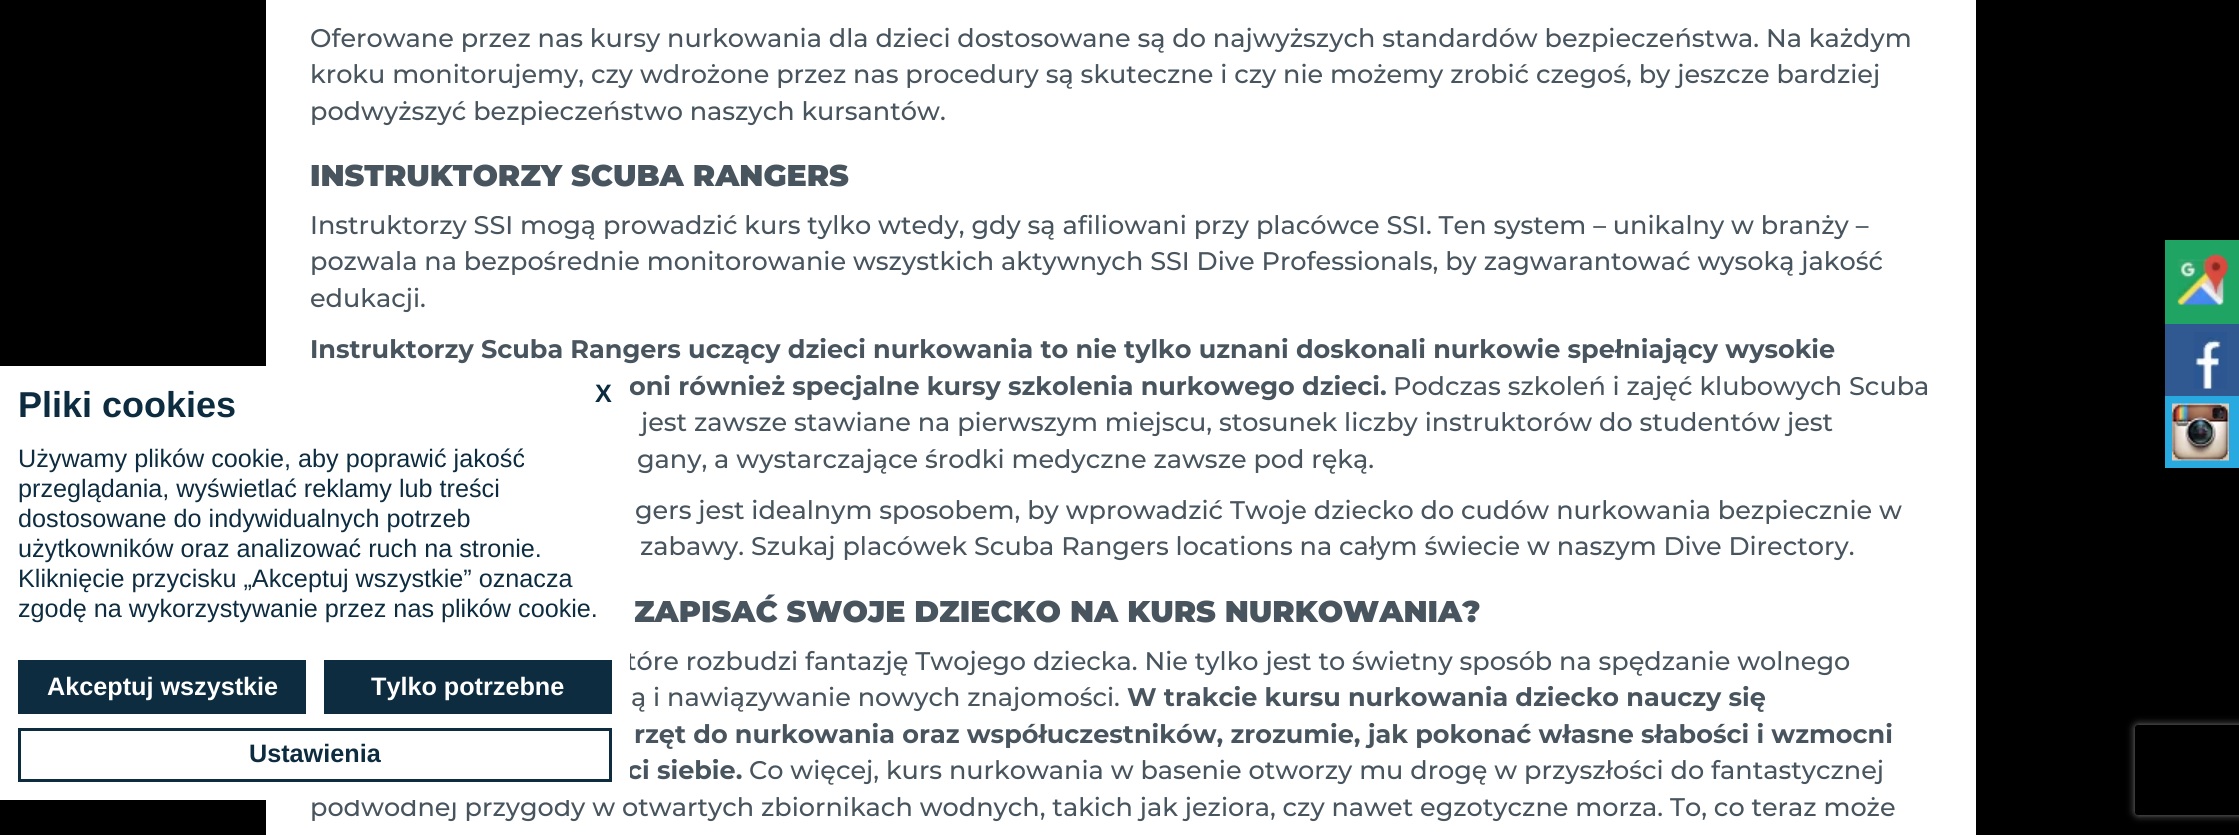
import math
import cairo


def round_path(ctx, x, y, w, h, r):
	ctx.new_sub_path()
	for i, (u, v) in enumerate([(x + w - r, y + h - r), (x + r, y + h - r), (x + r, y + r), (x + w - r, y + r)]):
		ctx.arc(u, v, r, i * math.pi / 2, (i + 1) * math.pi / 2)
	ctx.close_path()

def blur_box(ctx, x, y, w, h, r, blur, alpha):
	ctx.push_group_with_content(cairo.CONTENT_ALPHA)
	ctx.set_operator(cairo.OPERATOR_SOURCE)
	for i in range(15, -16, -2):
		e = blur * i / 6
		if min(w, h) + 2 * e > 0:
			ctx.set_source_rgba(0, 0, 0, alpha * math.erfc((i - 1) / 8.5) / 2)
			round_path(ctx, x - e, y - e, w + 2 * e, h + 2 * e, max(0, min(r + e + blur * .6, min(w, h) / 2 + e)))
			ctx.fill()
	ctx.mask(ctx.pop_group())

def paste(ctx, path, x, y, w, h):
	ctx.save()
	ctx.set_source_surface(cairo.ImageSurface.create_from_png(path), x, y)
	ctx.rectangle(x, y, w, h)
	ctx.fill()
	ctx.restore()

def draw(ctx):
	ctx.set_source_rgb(0, 0, 0)
	ctx.paint()
	ctx.set_source_rgb(1, 1, 1)
	ctx.rectangle(266, 0, 1710, 835)
	ctx.fill()
	ctx.select_font_face('Montserrat Medium')
	ctx.set_font_size(25.5)
	ctx.set_source_rgb(0.282, 0.333, 0.369)
	for x, y, s in [
		(310, 47, 'Oferowane przez nas kursy nurkowania dla dzieci dostosowane są do najwyższych standardów bezpieczeństwa. Na każdym'),
		(310, 83, 'kroku monitorujemy, czy wdrożone przez nas procedury są skuteczne i czy nie możemy zrobić czegoś, by jeszcze bardziej'),
		(310, 120, 'podwyższyć bezpieczeństwo naszych kursantów.'),
	]:
		ctx.move_to(x, y)
		ctx.show_text(s)
	ctx.select_font_face('Montserrat Black')
	ctx.set_font_size(30)
	ctx.move_to(310, 186)
	ctx.show_text('INSTRUKTORZY SCUBA RANGERS')
	ctx.select_font_face('Montserrat Medium')
	ctx.set_font_size(25.5)
	for x, y, s in [
		(310, 234, 'Instruktorzy SSI mogą prowadzić kurs tylko wtedy, gdy są afiliowani przy placówce SSI. Ten system – unikalny w branży –'),
		(310, 270, 'pozwala na bezpośrednie monitorowanie wszystkich aktywnych SSI Dive Professionals, by zagwarantować wysoką jakość'),
		(310, 307, 'edukacji.'),
	]:
		ctx.move_to(x, y)
		ctx.show_text(s)
	ctx.select_font_face('Montserrat', cairo.FONT_SLANT_NORMAL, cairo.FONT_WEIGHT_BOLD)
	ctx.move_to(310, 358)
	ctx.show_text('Instruktorzy Scuba Rangers uczący dzieci nurkowania to nie tylko uznani doskonali nurkowie spełniający wysokie')
	ctx.move_to(629, 395)
	ctx.show_text('oni również specjalne kursy szkolenia nurkowego dzieci.')
	ctx.select_font_face('Montserrat Medium')
	for x, y, s in [
		(1393, 395, 'Podczas szkoleń i zajęć klubowych Scuba'),
		(641, 431, 'jest zawsze stawiane na pierwszym miejscu, stosunek liczby instruktorów do studentów jest'),
		(637, 468, 'gany, a wystarczające środki medyczne zawsze pod ręką.'),
		(635, 519, 'gers jest idealnym sposobem, by wprowadzić Twoje dziecko do cudów nurkowania bezpiecznie w'),
		(640, 555, 'zabawy. Szukaj placówek Scuba Rangers locations na całym świecie w naszym Dive Directory.'),
	]:
		ctx.move_to(x, y)
		ctx.show_text(s)
	ctx.select_font_face('Montserrat Black')
	ctx.set_font_size(30)
	ctx.move_to(634, 622)
	ctx.show_text('ZAPISAĆ SWOJE DZIECKO NA KURS NURKOWANIA?')
	ctx.select_font_face('Montserrat Medium')
	ctx.set_font_size(25.5)
	ctx.move_to(626, 670)
	ctx.show_text('tóre rozbudzi fantazję Twojego dziecka. Nie tylko jest to świetny sposób na spędzanie wolnego')
	ctx.move_to(631, 706)
	ctx.show_text('ą i nawiązywanie nowych znajomości.')
	ctx.select_font_face('Montserrat', cairo.FONT_SLANT_NORMAL, cairo.FONT_WEIGHT_BOLD)
	for x, y, s in [
		(1127, 706, 'W trakcie kursu nurkowania dziecko nauczy się'),
		(634, 743, 'rzęt do nurkowania oraz współuczestników, zrozumie, jak pokonać własne słabości i wzmocni'),
		(627, 779, 'ci siebie.'),
	]:
		ctx.move_to(x, y)
		ctx.show_text(s)
	ctx.select_font_face('Montserrat Medium')
	ctx.move_to(749, 779)
	ctx.show_text('Co więcej, kurs nurkowania w basenie otworzy mu drogę w przyszłości do fantastycznej')
	ctx.move_to(310, 816)
	ctx.show_text('podwodnej przygody w otwartych zbiornikach wodnych, takich jak jeziora, czy nawet egzotyczne morza. To, co teraz może')
	ctx.set_source_rgb(0.125, 0.643, 0.392)
	ctx.rectangle(2165, 240, 74, 84)
	ctx.fill()
	paste(ctx, 'media/1.png', 2177, 253, 52, 53)
	ctx.set_source_rgb(0.188, 0.345, 0.569)
	ctx.rectangle(2165, 324, 74, 72)
	ctx.fill()
	paste(ctx, 'media/2.png', 2194, 332, 33, 57)
	ctx.set_source_rgb(0.157, 0.667, 0.882)
	ctx.rectangle(2165, 396, 74, 72)
	ctx.fill()
	paste(ctx, 'media/3.png', 2172, 403, 57, 58)
	ctx.set_source_rgb(1, 1, 1)
	ctx.rectangle(0, 366, 630, 434)
	ctx.fill()
	ctx.select_font_face('Liberation Sans', cairo.FONT_SLANT_NORMAL, cairo.FONT_WEIGHT_BOLD)
	ctx.set_font_size(36)
	ctx.set_source_rgb(0.051, 0.173, 0.251)
	ctx.move_to(18, 417)
	ctx.show_text('Pliki cookies')
	ctx.set_font_size(25.2)
	ctx.move_to(595, 402)
	ctx.show_text('X')
	ctx.select_font_face('Liberation Sans')
	for x, y, s in [
		(18, 467, 'Używamy plików cookie, aby poprawić jakość'),
		(18, 497, 'przeglądania, wyświetlać reklamy lub treści'),
		(18, 527, 'dostosowane do indywidualnych potrzeb'),
		(18, 557, 'użytkowników oraz analizować ruch na stronie.'),
		(18, 587, 'Kliknięcie przycisku „Akceptuj wszystkie” oznacza'),
		(18, 617, 'zgodę na wykorzystywanie przez nas plików cookie.'),
	]:
		ctx.move_to(x, y)
		ctx.show_text(s)
	ctx.rectangle(18, 660, 288, 54)
	ctx.fill()
	ctx.select_font_face('Liberation Sans', cairo.FONT_SLANT_NORMAL, cairo.FONT_WEIGHT_BOLD)
	ctx.set_source_rgb(1, 1, 1)
	ctx.move_to(47, 695)
	ctx.show_text('Akceptuj wszystkie')
	ctx.set_source_rgb(0.051, 0.173, 0.251)
	ctx.rectangle(324, 660, 288, 54)
	ctx.fill()
	ctx.set_source_rgb(1, 1, 1)
	ctx.move_to(371, 695)
	ctx.show_text('Tylko potrzebne')
	ctx.rectangle(19.5, 729.5, 591, 51)
	ctx.set_source_rgb(0.051, 0.173, 0.251)
	ctx.set_line_width(3)
	ctx.stroke()
	ctx.move_to(249, 762)
	ctx.show_text('Ustawienia')
	ctx.save()
	ctx.set_fill_rule(cairo.FILL_RULE_EVEN_ODD)
	ctx.new_path()
	ctx.move_to(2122, 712)
	ctx.line_to(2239, 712)
	ctx.line_to(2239, 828)
	ctx.line_to(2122, 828)
	ctx.close_path()
	ctx.move_to(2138, 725)
	ctx.line_to(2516, 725)
	ctx.curve_to(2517.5, 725, 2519, 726.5, 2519, 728)
	ctx.line_to(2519, 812)
	ctx.curve_to(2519, 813.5, 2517.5, 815, 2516, 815)
	ctx.line_to(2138, 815)
	ctx.curve_to(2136.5, 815, 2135, 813.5, 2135, 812)
	ctx.line_to(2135, 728)
	ctx.curve_to(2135, 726.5, 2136.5, 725, 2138, 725)
	ctx.close_path()
	ctx.clip()
	ctx.set_source_rgb(0.502, 0.502, 0.502)
	blur_box(ctx, 2135, 725, 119, 90, 3, 4, 1)
	ctx.restore()


surface = cairo.ImageSurface(cairo.FORMAT_RGB24, 2239, 835)
ctx = cairo.Context(surface)
options = cairo.FontOptions()
options.set_hint_metrics(cairo.HINT_METRICS_OFF)
options.set_hint_style(cairo.HINT_STYLE_NONE)
ctx.set_font_options(options)
ctx.set_miter_limit(4)
draw(ctx)
surface.write_to_png('image.png')
